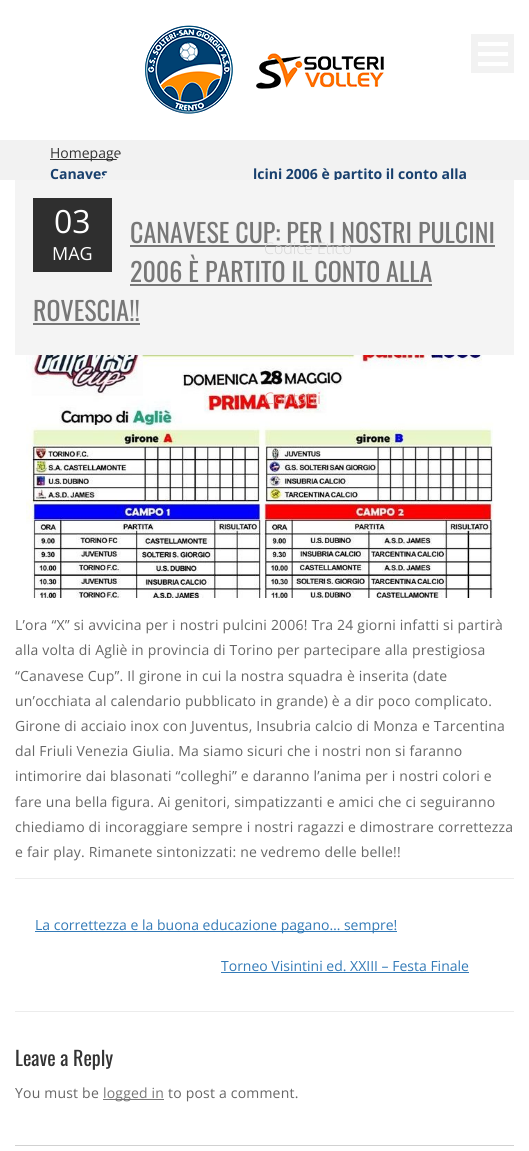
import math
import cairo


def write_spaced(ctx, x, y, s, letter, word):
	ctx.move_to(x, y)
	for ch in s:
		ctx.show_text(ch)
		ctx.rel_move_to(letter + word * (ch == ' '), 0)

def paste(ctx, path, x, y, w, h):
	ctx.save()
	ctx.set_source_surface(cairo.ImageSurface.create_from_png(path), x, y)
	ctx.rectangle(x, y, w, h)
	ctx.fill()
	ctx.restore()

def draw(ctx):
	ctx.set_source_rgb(1, 1, 1)
	ctx.paint()
	ctx.set_source_rgb(0.949, 0.949, 0.949)
	ctx.rectangle(0, 140, 529, 40)
	ctx.fill()
	ctx.set_source_rgb(0.2, 0.2, 0.2)
	ctx.rectangle(50, 159, 71, 1)
	ctx.fill()
	ctx.select_font_face('Open Sans')
	ctx.set_font_size(14)
	ctx.move_to(50, 158)
	ctx.show_text('Homepage')
	ctx.select_font_face('Open Sans', cairo.FONT_SLANT_NORMAL, cairo.FONT_WEIGHT_BOLD)
	ctx.set_source_rgb(0.094, 0.251, 0.431)
	ctx.move_to(50, 179)
	ctx.show_text('Canaves')
	ctx.set_source_rgb(0.949, 0.949, 0.949)
	ctx.new_path()
	ctx.move_to(253, 180)
	ctx.line_to(101, 180)
	ctx.line_to(253, -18)
	ctx.close_path()
	ctx.fill()
	ctx.set_source_rgb(0.094, 0.251, 0.431)
	ctx.move_to(253, 179)
	ctx.show_text('lcini 2006 è partito il conto alla')
	ctx.set_source_rgb(0.82, 0.82, 0.82)
	ctx.rectangle(15, 1145, 499, 1)
	ctx.fill()
	ctx.set_source_rgb(0.957, 0.957, 0.957)
	ctx.rectangle(15, 180, 499, 175)
	ctx.fill()
	ctx.set_source_rgb(0.184, 0.184, 0.184)
	ctx.rectangle(33, 198, 79, 74)
	ctx.fill()
	ctx.select_font_face('Open Sans')
	ctx.set_font_size(32)
	ctx.set_source_rgb(1, 1, 1)
	ctx.move_to(54, 233)
	ctx.show_text('03')
	ctx.set_font_size(18)
	ctx.move_to(52, 260)
	ctx.show_text('MAG')
	ctx.select_font_face('Oswald')
	ctx.set_font_size(26)
	ctx.set_source_rgb(0.467, 0.467, 0.467)
	ctx.move_to(130, 243)
	ctx.show_text('CANAVESE CUP: PER I NOSTRI PULCINI')
	ctx.rectangle(130, 245, 365, 2)
	ctx.fill()
	ctx.move_to(130, 282)
	ctx.show_text('2006 È PARTITO IL CONTO ALLA')
	ctx.rectangle(130, 284, 302, 2)
	ctx.fill()
	ctx.move_to(33, 321)
	ctx.show_text('ROVESCIA!!')
	ctx.rectangle(33, 323, 107, 2)
	ctx.fill()
	paste(ctx, 'media/1.png', 26, 355, 468, 243)
	ctx.select_font_face('Open Sans')
	ctx.set_font_size(14)
	ctx.set_source_rgb(0.4, 0.4, 0.4)
	for x, y, s in [
		(15, 630, 'L’ora “X” si avvicina per i nostri pulcini 2006! Tra 24 giorni infatti si partirà'),
		(15, 655, 'alla volta di Agliè in provincia di Torino per partecipare alla prestigiosa'),
		(15, 681, '“Canavese Cup”. Il girone in cui la nostra squadra è inserita (date'),
		(15, 706, 'un’occhiata al calendario pubblicato in grande) è a dir poco complicato.'),
		(15, 731, 'Girone di acciaio inox con Juventus, Insubria calcio di Monza e Tarcentina'),
		(15, 756, 'dal Friuli Venezia Giulia. Ma siamo sicuri che i nostri non si faranno'),
		(15, 781, 'intimorire dai blasonati “colleghi” e daranno l’anima per i nostri colori e'),
		(15, 807, 'fare una bella figura. Ai genitori, simpatizzanti e amici che ci seguiranno'),
		(15, 832, 'chiediamo di incoraggiare sempre i nostri ragazzi e dimostrare correttezza'),
		(15, 857, 'e fair play. Rimanete sintonizzati: ne vedremo delle belle!!'),
	]:
		write_spaced(ctx, x, y, s, 0.2, 0)
	ctx.set_source_rgb(0.922, 0.922, 0.922)
	ctx.rectangle(15, 878, 499, 1)
	ctx.rectangle(15, 1011, 499, 1)
	ctx.fill()
	ctx.set_source_rgb(0.2, 0.478, 0.718)
	ctx.rectangle(35, 931, 362, 1)
	ctx.fill()
	ctx.move_to(35, 930)
	ctx.show_text('La correttezza e la buona educazione pagano… sempre!')
	ctx.move_to(221, 971)
	ctx.show_text('Torneo Visintini ed. XXIII – Festa Finale')
	ctx.rectangle(221, 972, 248, 1)
	ctx.fill()
	ctx.select_font_face('Oswald')
	ctx.set_font_size(20)
	ctx.set_source_rgb(0.2, 0.2, 0.2)
	ctx.move_to(15, 1066)
	ctx.show_text('Leave a Reply')
	ctx.select_font_face('Open Sans')
	ctx.set_font_size(14)
	ctx.set_source_rgb(0.4, 0.4, 0.4)
	write_spaced(ctx, 15, 1098, 'You must be', 0.2, 0)
	ctx.set_source_rgb(0.467, 0.467, 0.467)
	ctx.rectangle(103, 1099, 61, 1)
	ctx.fill()
	write_spaced(ctx, 103, 1098, 'logged in', 0.2, 0)
	ctx.set_source_rgb(0.4, 0.4, 0.4)
	write_spaced(ctx, 168, 1098, 'to post a comment.', 0.2, 0)
	ctx.set_source_rgb(1, 1, 1)
	ctx.rectangle(132, 0, 121, 140)
	ctx.fill()
	paste(ctx, 'media/2.png', 145, 25, 240, 89)
	ctx.set_source_rgb(0.949, 0.949, 0.949)
	ctx.rectangle(471, 34, 43, 39)
	ctx.fill()
	ctx.set_source_rgb(1, 1, 1)
	ctx.rectangle(478, 62, 30, 4)
	ctx.rectangle(478, 52, 30, 4)
	ctx.rectangle(478, 42, 30, 4)
	ctx.fill()
	ctx.select_font_face('Open Sans Light')
	ctx.set_font_size(16)
	ctx.set_source_rgb(0.835, 0.835, 0.835)
	ctx.move_to(264, 254)
	ctx.show_text('Codice Etico')
	ctx.set_source_rgb(0.894, 0.498, 0.494)
	ctx.move_to(264, 404)
	ctx.show_text('Contatti')


surface = cairo.ImageSurface(cairo.FORMAT_RGB24, 529, 1151)
ctx = cairo.Context(surface)
options = cairo.FontOptions()
options.set_hint_metrics(cairo.HINT_METRICS_OFF)
options.set_hint_style(cairo.HINT_STYLE_NONE)
ctx.set_font_options(options)
ctx.set_miter_limit(4)
draw(ctx)
surface.write_to_png('image.png')
